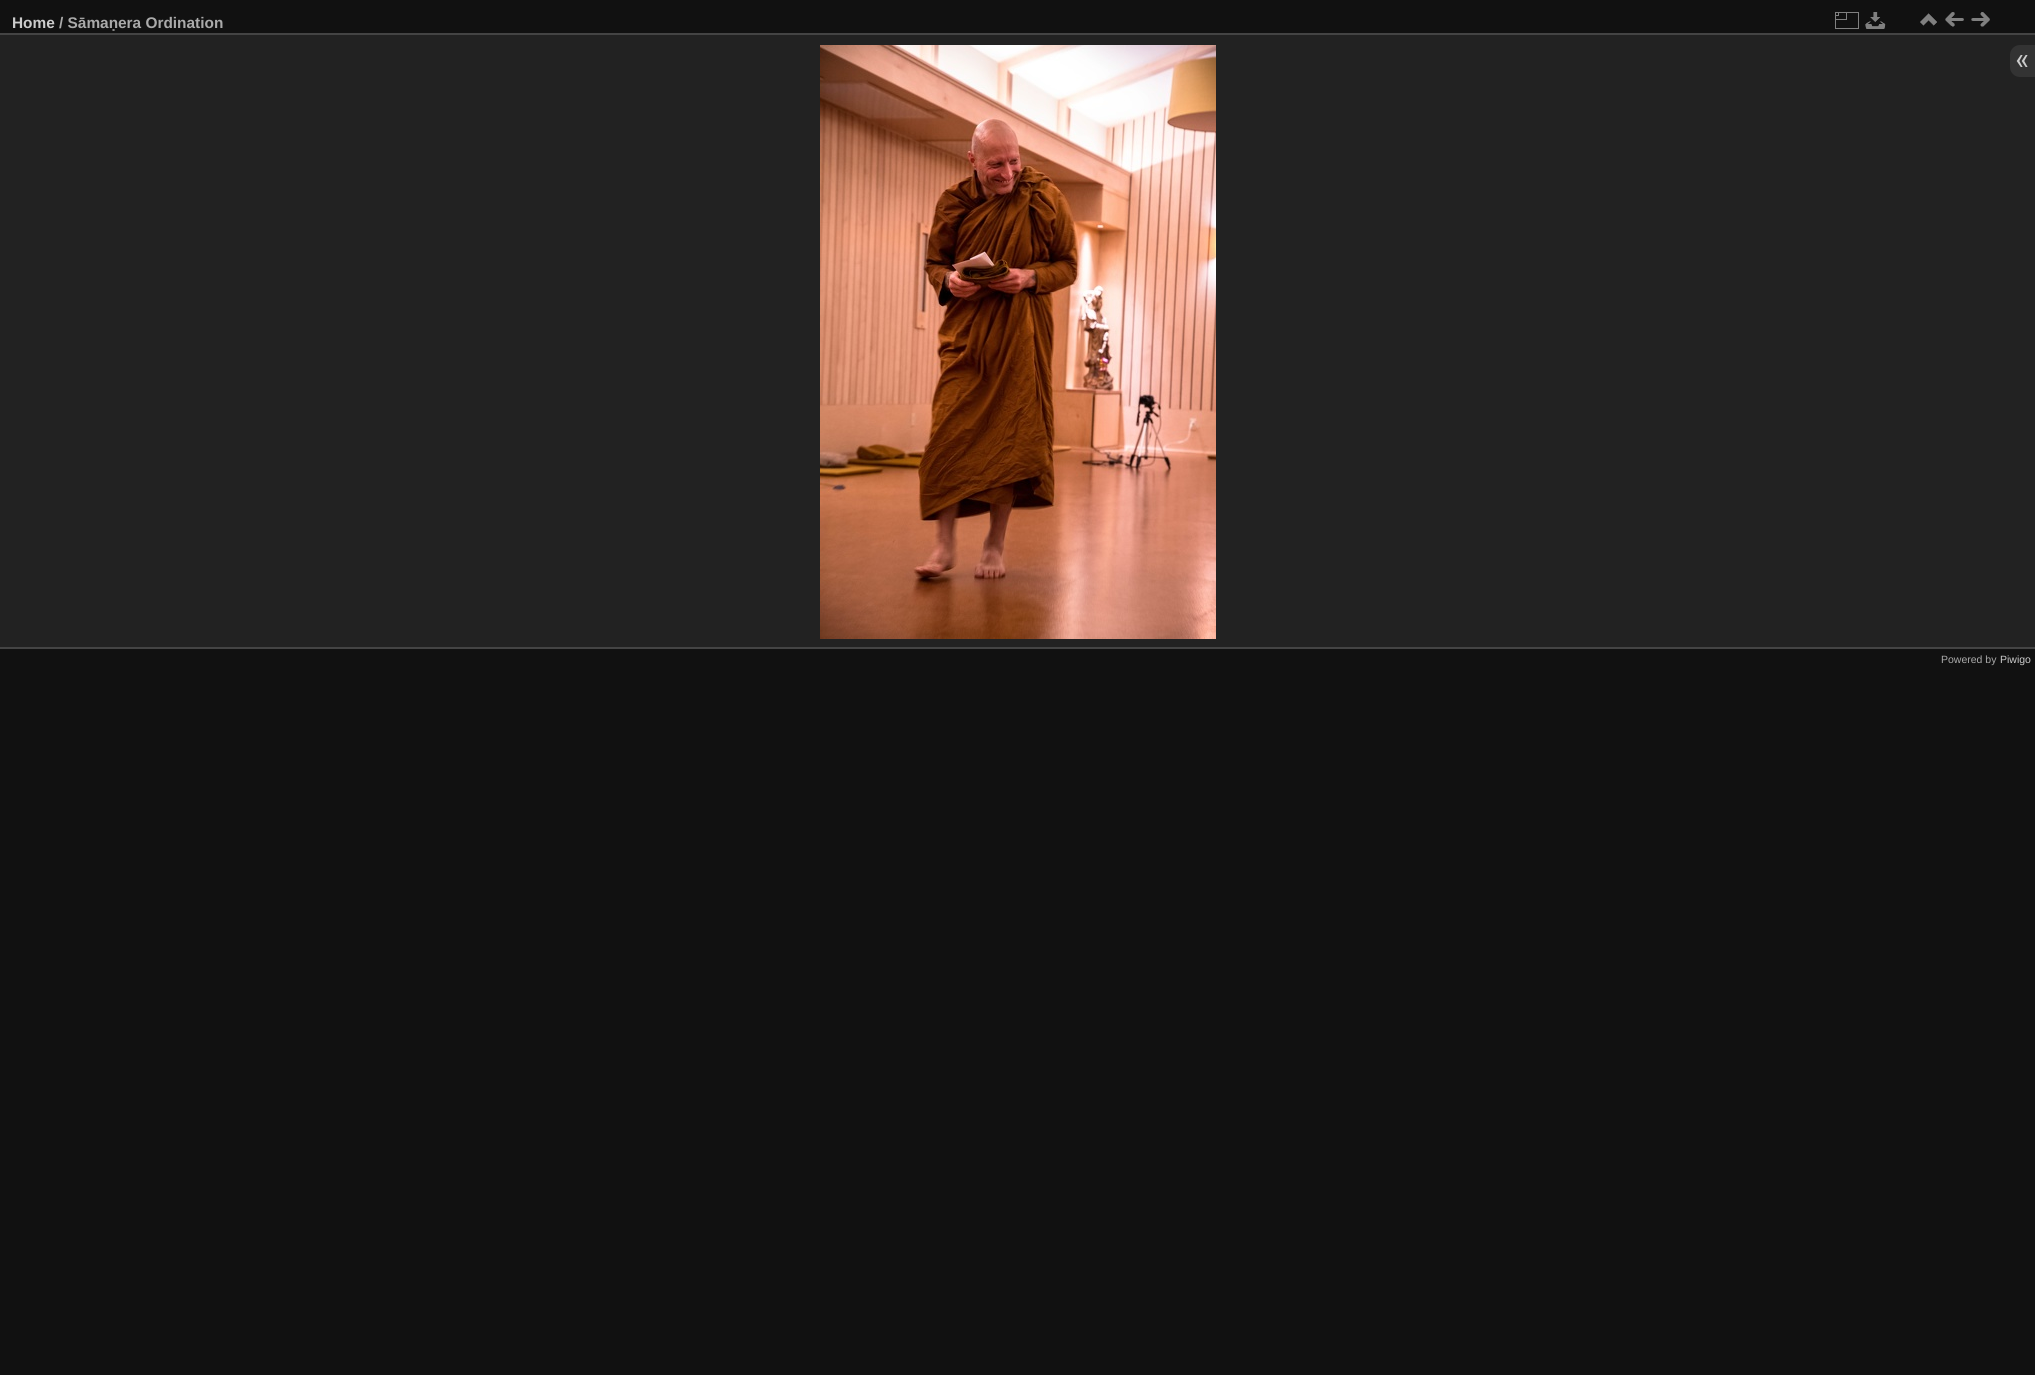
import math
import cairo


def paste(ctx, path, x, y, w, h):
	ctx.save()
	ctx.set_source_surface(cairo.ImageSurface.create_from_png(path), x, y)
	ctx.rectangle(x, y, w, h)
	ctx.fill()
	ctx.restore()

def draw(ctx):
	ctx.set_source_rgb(0.067, 0.067, 0.067)
	ctx.paint()
	ctx.set_source_rgb(0.133, 0.133, 0.133)
	ctx.rectangle(0, 35, 2035, 612)
	ctx.fill()
	ctx.set_source_rgb(0.267, 0.267, 0.267)
	ctx.rectangle(0, 647, 2035, 2)
	ctx.rectangle(0, 33, 2035, 2)
	ctx.fill()
	ctx.select_font_face('Liberation Sans', cairo.FONT_SLANT_NORMAL, cairo.FONT_WEIGHT_BOLD)
	ctx.set_font_size(15.4)
	ctx.set_source_rgb(0.8, 0.8, 0.8)
	ctx.move_to(12, 28)
	ctx.show_text('Home')
	ctx.set_source_rgb(0.667, 0.667, 0.667)
	ctx.move_to(59, 28)
	ctx.show_text('/ Sāmaṇera Ordination')
	paste(ctx, 'media/1.png', 1835, 12, 24, 17)
	paste(ctx, 'media/2.png', 1865, 12, 21, 17)
	paste(ctx, 'media/3.png', 1920, 13, 17, 13)
	paste(ctx, 'media/4.png', 1945, 12, 19, 15)
	paste(ctx, 'media/5.png', 1971, 12, 19, 15)
	paste(ctx, 'media/6.png', 820, 45, 396, 594)
	ctx.set_source_rgb(0.2, 0.2, 0.2)
	ctx.new_path()
	ctx.move_to(2020, 45)
	ctx.line_to(2035, 45)
	ctx.line_to(2035, 77)
	ctx.line_to(2020, 77)
	ctx.curve_to(2014.5, 77, 2010, 72.5, 2010, 67)
	ctx.line_to(2010, 55)
	ctx.curve_to(2010, 49.5, 2014.5, 45, 2020, 45)
	ctx.close_path()
	ctx.fill()
	paste(ctx, 'media/7.png', 2016, 55, 12, 12)
	ctx.select_font_face('Liberation Sans')
	ctx.set_font_size(10.5)
	ctx.set_source_rgb(0.667, 0.667, 0.667)
	ctx.move_to(1941, 663)
	ctx.show_text('Powered by')
	ctx.set_source_rgb(0.8, 0.8, 0.8)
	ctx.move_to(2000, 663)
	ctx.show_text('Piwigo')


surface = cairo.ImageSurface(cairo.FORMAT_RGB24, 2035, 1375)
ctx = cairo.Context(surface)
options = cairo.FontOptions()
options.set_hint_metrics(cairo.HINT_METRICS_OFF)
options.set_hint_style(cairo.HINT_STYLE_NONE)
ctx.set_font_options(options)
ctx.set_miter_limit(4)
draw(ctx)
surface.write_to_png('image.png')
